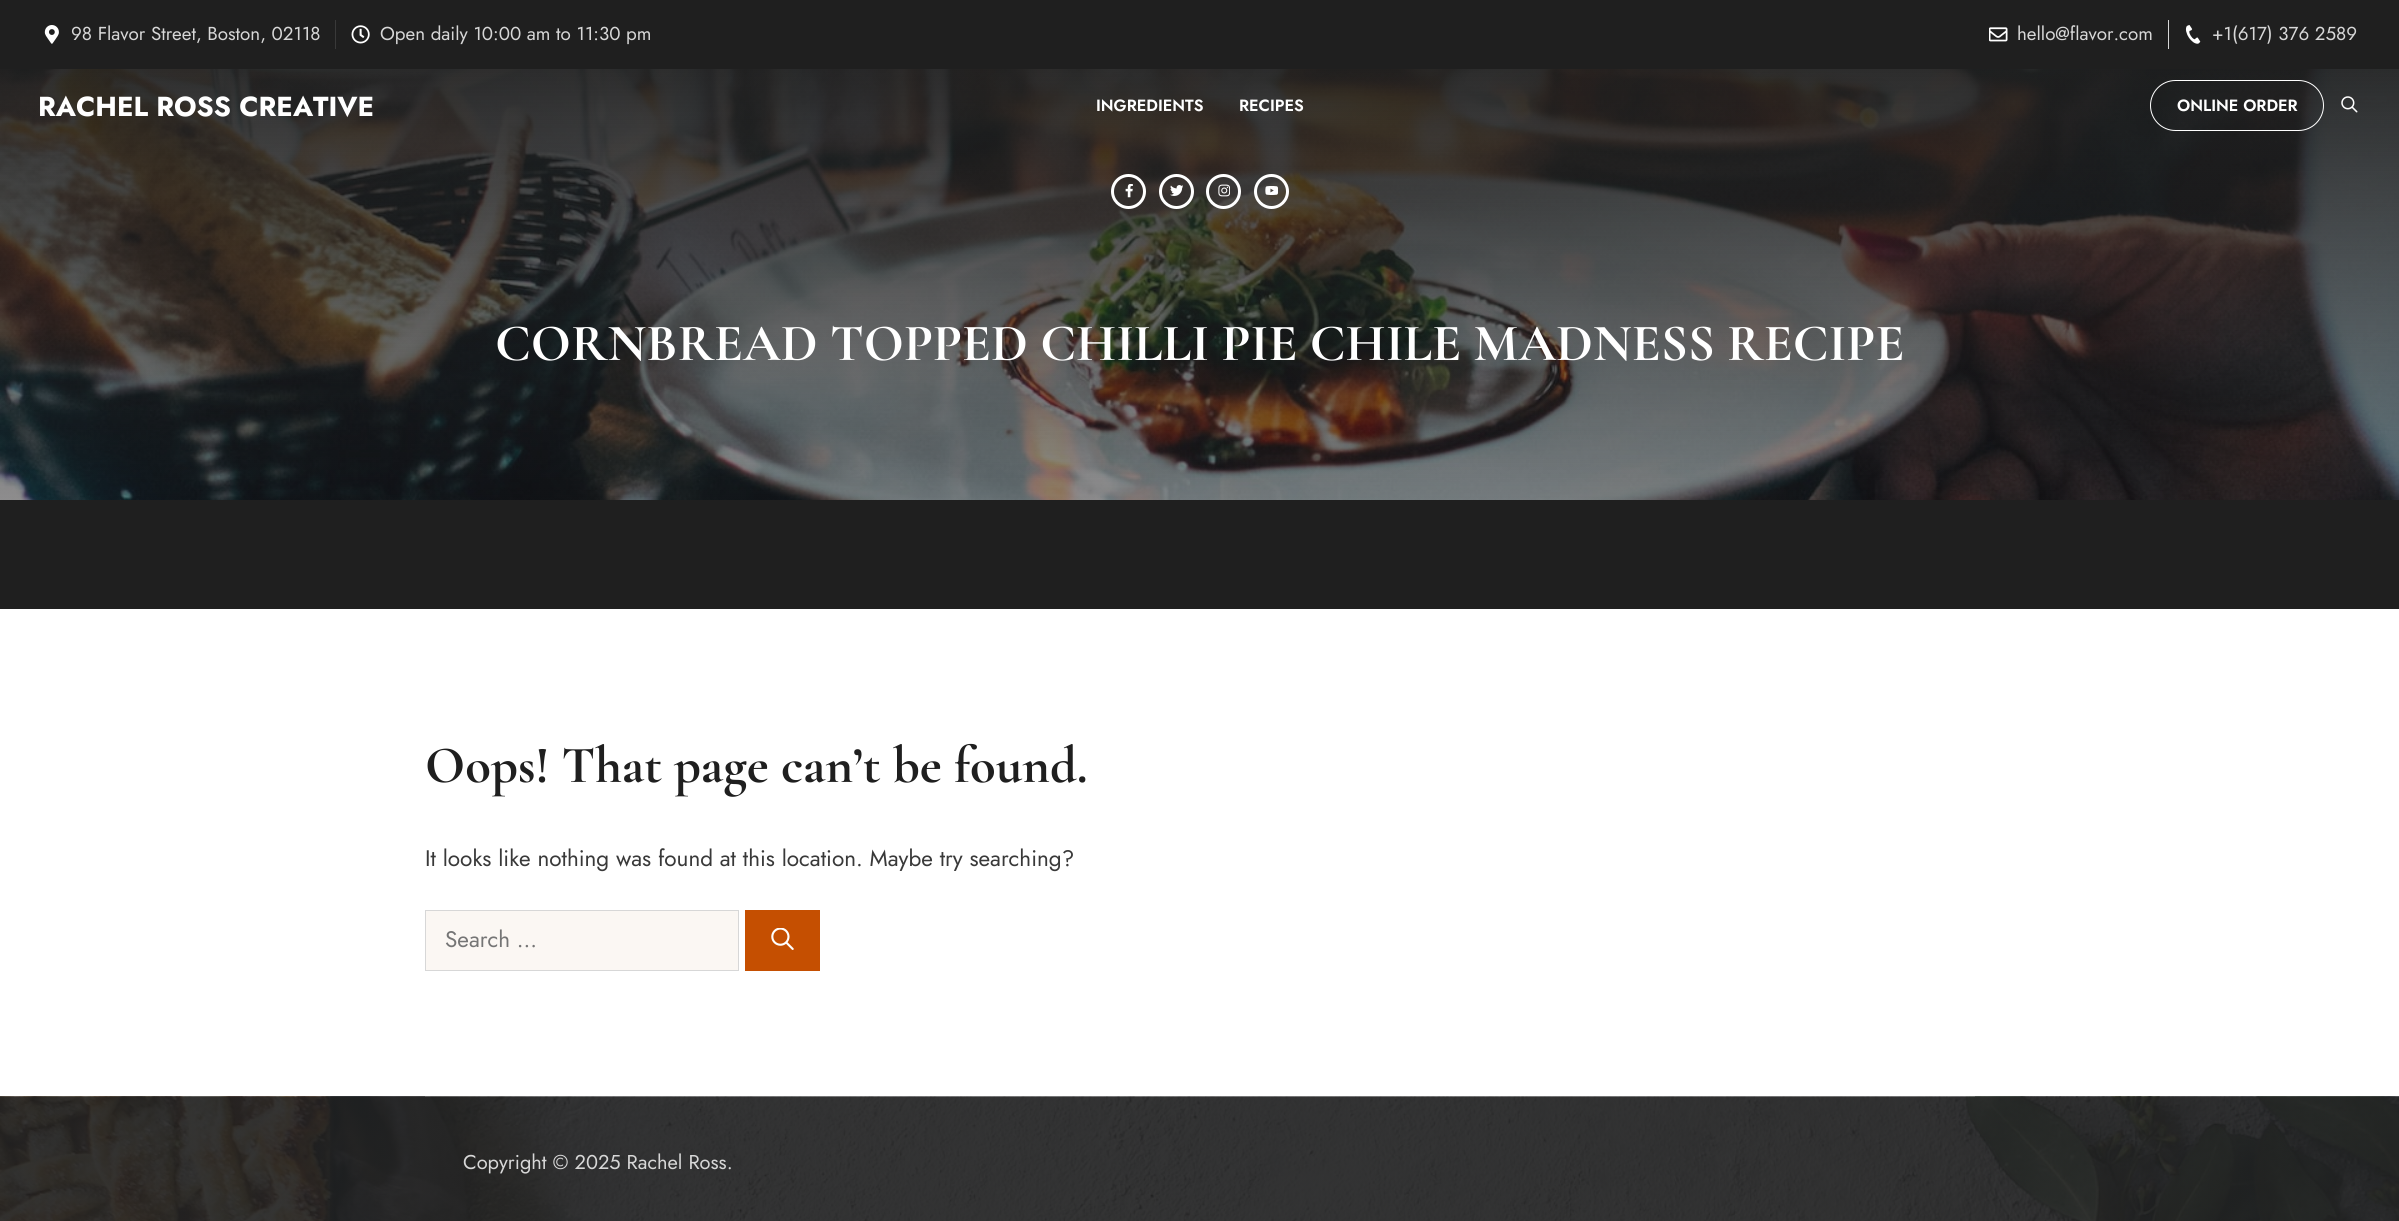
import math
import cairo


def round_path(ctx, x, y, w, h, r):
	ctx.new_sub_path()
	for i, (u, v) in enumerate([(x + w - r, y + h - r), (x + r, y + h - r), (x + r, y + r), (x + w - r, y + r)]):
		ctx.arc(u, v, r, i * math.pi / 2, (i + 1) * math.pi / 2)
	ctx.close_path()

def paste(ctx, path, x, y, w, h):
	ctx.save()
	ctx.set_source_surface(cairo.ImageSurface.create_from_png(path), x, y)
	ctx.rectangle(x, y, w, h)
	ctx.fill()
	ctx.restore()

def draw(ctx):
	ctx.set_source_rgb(1, 1, 1)
	ctx.paint()
	ctx.set_source_rgb(0.122, 0.122, 0.122)
	ctx.rectangle(0, 0, 2399, 69)
	ctx.fill()
	ctx.set_source_rgb(0.224, 0.224, 0.224)
	ctx.rectangle(335, 20, 1, 29)
	ctx.fill()
	paste(ctx, 'media/1.png', 44, 25, 15, 19)
	ctx.select_font_face('Jost')
	ctx.set_font_size(18.75)
	ctx.set_source_rgb(0.843, 0.843, 0.843)
	ctx.move_to(71, 40)
	ctx.show_text('98 Flavor Street, Boston, 02118')
	paste(ctx, 'media/2.png', 351, 25, 19, 19)
	ctx.move_to(380, 40)
	ctx.show_text('Open daily 10:00 am to 11:30 pm')
	paste(ctx, 'media/3.png', 1989, 27, 19, 15)
	ctx.move_to(2017, 40)
	ctx.show_text('hello@flavor.com')
	ctx.rectangle(2168, 20, 1, 29)
	ctx.fill()
	paste(ctx, 'media/4.png', 2185, 25, 16, 19)
	ctx.move_to(2212, 40)
	ctx.show_text('+1(617) 376 2589')
	paste(ctx, 'media/10.png', 0, 69, 2399, 431)
	ctx.select_font_face('Jost', cairo.FONT_SLANT_NORMAL, cairo.FONT_WEIGHT_BOLD)
	ctx.set_font_size(27.5)
	ctx.set_source_rgb(1, 1, 1)
	ctx.move_to(38, 116)
	ctx.show_text('RACHEL ROSS CREATIVE')
	ctx.select_font_face('Jost SemiBold')
	ctx.set_font_size(16.25)
	ctx.move_to(1096, 111)
	ctx.show_text('INGREDIENTS')
	ctx.move_to(1239, 111)
	ctx.show_text('RECIPES')
	round_path(ctx, 2150.5, 80.5, 173, 50, 25)
	ctx.set_line_width(1)
	ctx.stroke()
	ctx.move_to(2177, 111)
	ctx.show_text('ONLINE ORDER')
	paste(ctx, 'media/5.png', 2341, 96, 17, 17)
	ctx.arc(1128.5, 191.5, 16, 0, 2 * math.pi)
	ctx.set_line_width(3)
	ctx.stroke()
	paste(ctx, 'media/6.png', 1125, 184, 8, 14)
	ctx.arc(1176.5, 191.5, 16, 0, 2 * math.pi)
	ctx.stroke()
	paste(ctx, 'media/7.png', 1170, 185, 13, 11)
	ctx.arc(1223.5, 191.5, 16, 0, 2 * math.pi)
	ctx.stroke()
	paste(ctx, 'media/8.png', 1218, 184, 12, 13)
	ctx.arc(1271.5, 191.5, 16, 0, 2 * math.pi)
	ctx.stroke()
	paste(ctx, 'media/9.png', 1265, 186, 13, 9)
	ctx.select_font_face('Cormorant Garamond', cairo.FONT_SLANT_NORMAL, cairo.FONT_WEIGHT_BOLD)
	ctx.set_font_size(52.5)
	ctx.move_to(495, 360)
	ctx.show_text('CORNBREAD TOPPED CHILLI PIE CHILE MADNESS RECIPE')
	ctx.set_source_rgb(0.122, 0.122, 0.122)
	ctx.rectangle(0, 500, 2399, 109)
	ctx.fill()
	ctx.move_to(425, 782)
	ctx.show_text('Oops! That page can’t be found.')
	ctx.select_font_face('Jost')
	ctx.set_font_size(22.5)
	ctx.set_source_rgb(0.224, 0.224, 0.224)
	ctx.move_to(425, 866)
	ctx.show_text('It looks like nothing was found at this location. Maybe try searching?')
	ctx.set_source_rgb(0.984, 0.965, 0.953)
	ctx.rectangle(425.5, 910.5, 313, 60)
	ctx.fill_preserve()
	ctx.set_source_rgb(0.843, 0.843, 0.843)
	ctx.set_line_width(1)
	ctx.stroke()
	ctx.set_source_rgb(0.459, 0.459, 0.459)
	ctx.move_to(445, 947)
	ctx.show_text('Search …')
	ctx.set_source_rgb(0.773, 0.31, 0.004)
	ctx.rectangle(745, 910, 75, 61)
	ctx.fill()
	paste(ctx, 'media/11.png', 771, 928, 23, 22)
	paste(ctx, 'media/12.png', 0, 1096, 2399, 125)
	ctx.set_source_rgba(0.671, 0.671, 0.671, 0.3)
	ctx.rectangle(425, 1096, 1550, 1)
	ctx.fill()
	ctx.set_font_size(20)
	ctx.set_source_rgb(0.843, 0.843, 0.843)
	ctx.move_to(463, 1169)
	ctx.show_text('Copyright © 2025 Rachel Ross.')


surface = cairo.ImageSurface(cairo.FORMAT_RGB24, 2399, 1221)
ctx = cairo.Context(surface)
options = cairo.FontOptions()
options.set_hint_metrics(cairo.HINT_METRICS_OFF)
options.set_hint_style(cairo.HINT_STYLE_NONE)
ctx.set_font_options(options)
ctx.set_miter_limit(4)
draw(ctx)
surface.write_to_png('image.png')
